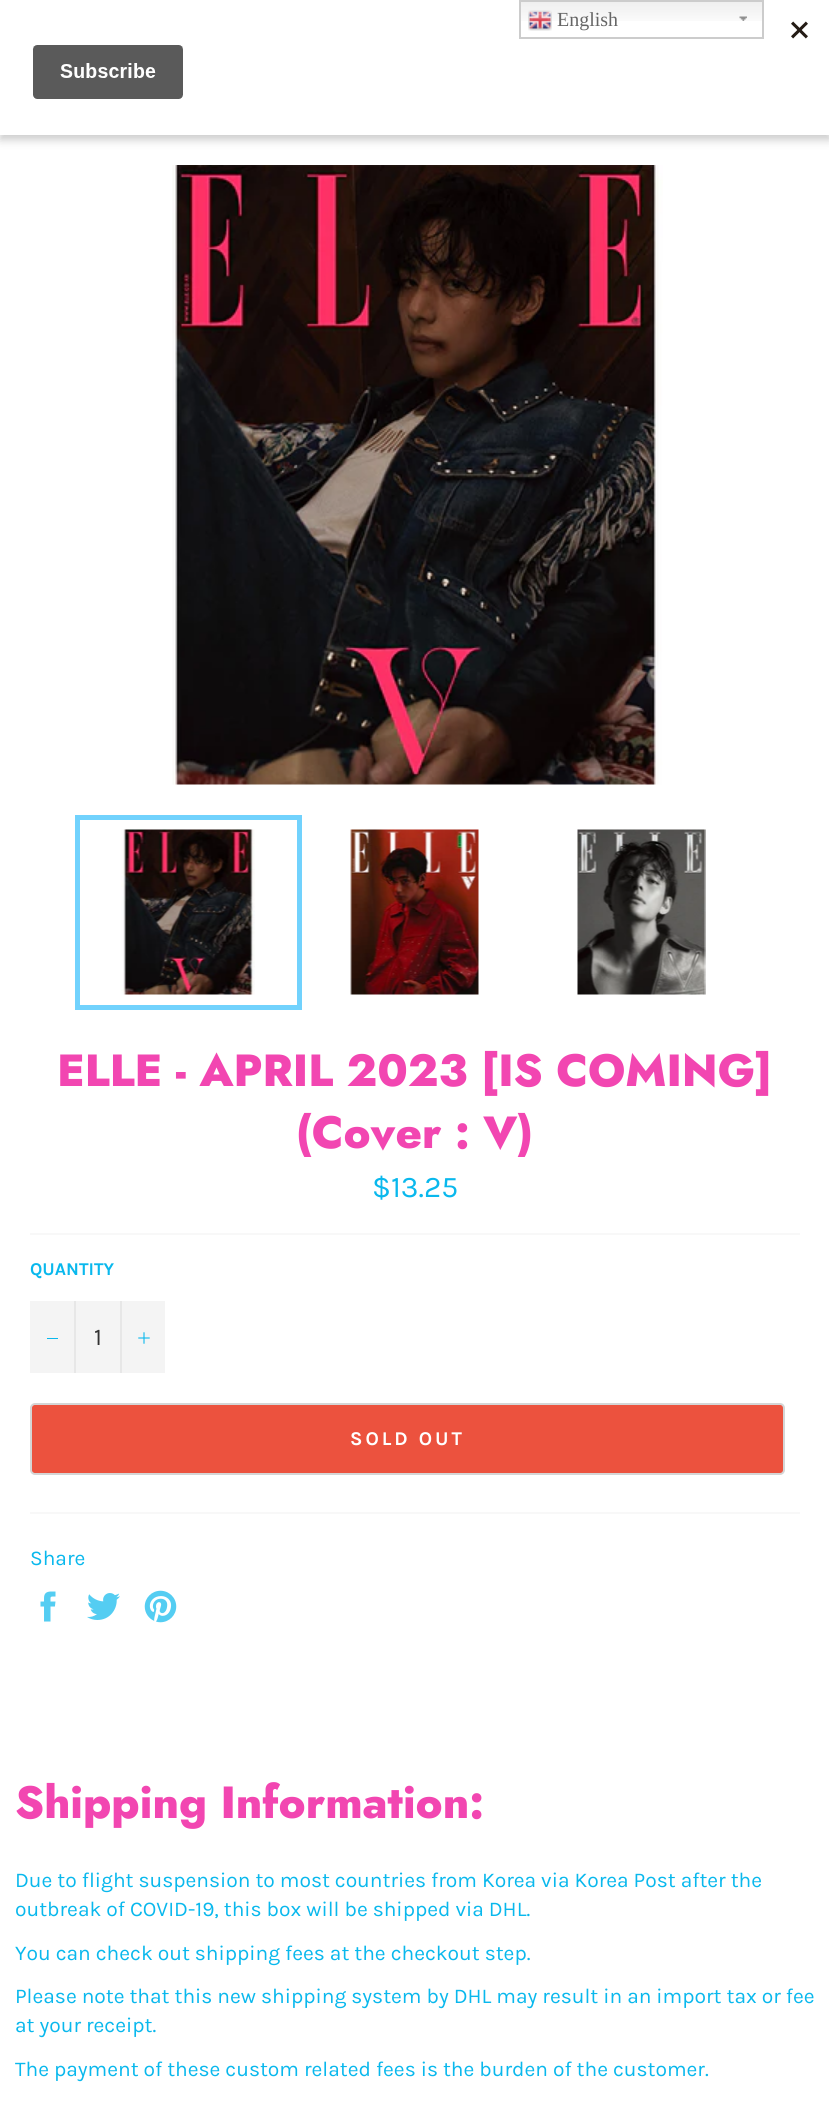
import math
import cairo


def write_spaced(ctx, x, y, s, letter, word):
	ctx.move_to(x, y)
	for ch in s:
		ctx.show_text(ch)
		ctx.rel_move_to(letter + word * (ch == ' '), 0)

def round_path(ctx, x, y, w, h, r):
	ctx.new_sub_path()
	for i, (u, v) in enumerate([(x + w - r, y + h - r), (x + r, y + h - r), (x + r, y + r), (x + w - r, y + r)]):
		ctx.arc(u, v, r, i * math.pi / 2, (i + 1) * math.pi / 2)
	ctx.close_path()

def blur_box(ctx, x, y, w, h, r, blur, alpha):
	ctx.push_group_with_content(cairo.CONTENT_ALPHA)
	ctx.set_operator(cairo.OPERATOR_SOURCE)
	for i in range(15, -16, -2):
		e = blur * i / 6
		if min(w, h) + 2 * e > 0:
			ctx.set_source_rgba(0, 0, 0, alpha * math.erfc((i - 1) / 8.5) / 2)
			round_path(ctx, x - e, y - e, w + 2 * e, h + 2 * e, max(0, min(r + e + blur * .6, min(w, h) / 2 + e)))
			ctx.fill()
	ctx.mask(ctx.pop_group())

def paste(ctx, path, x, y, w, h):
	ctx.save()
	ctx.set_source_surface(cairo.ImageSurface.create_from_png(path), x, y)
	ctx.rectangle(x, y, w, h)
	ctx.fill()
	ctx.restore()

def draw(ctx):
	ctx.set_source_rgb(1, 1, 1)
	ctx.paint()
	ctx.set_source_rgb(0, 0, 0)
	blur_box(ctx, 0, 5, 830, 135, 0, 4.5, 0.2)
	ctx.set_source_rgb(1, 1, 1)
	ctx.rectangle(0, 0, 829, 135)
	ctx.fill()
	paste(ctx, 'media/1.png', 32, 21, 776, 78)
	paste(ctx, 'media/2.png', 521, 2, 241, 19)
	paste(ctx, 'media/3.png', 739, 16, 8, 5)
	ctx.rectangle(520, 1, 243, 37)
	ctx.set_source_rgb(0.8, 0.8, 0.8)
	ctx.stroke()
	paste(ctx, 'media/4.png', 528, 10, 24, 21)
	ctx.select_font_face('Liberation Serif')
	ctx.set_font_size(20)
	ctx.set_source_rgb(0.4, 0.4, 0.4)
	ctx.move_to(557, 26)
	ctx.show_text('English')
	paste(ctx, 'media/5.png', 172, 165, 491, 620)
	paste(ctx, 'media/6.png', 121, 829, 134, 166)
	ctx.rectangle(77.5, 817.5, 222, 190)
	ctx.set_source_rgb(0.443, 0.824, 0.992)
	ctx.set_line_width(5)
	ctx.stroke()
	paste(ctx, 'media/7.png', 350, 829, 129, 166)
	paste(ctx, 'media/8.png', 577, 829, 129, 166)
	ctx.select_font_face('Jost ExtraBold')
	ctx.set_font_size(45)
	ctx.set_source_rgb(0.949, 0.275, 0.694)
	ctx.move_to(57, 1086)
	ctx.show_text('ELLE - APRIL 2023 [IS COMING]')
	ctx.move_to(296, 1148)
	ctx.show_text('(Cover : V)')
	ctx.select_font_face('Karla')
	ctx.set_font_size(30)
	ctx.set_source_rgb(0.039, 0.722, 0.929)
	ctx.move_to(372, 1197)
	ctx.show_text('$13.25')
	ctx.set_source_rgb(0.969, 0.969, 0.969)
	ctx.rectangle(30, 1233, 770, 2)
	ctx.fill()
	ctx.select_font_face('Karla', cairo.FONT_SLANT_NORMAL, cairo.FONT_WEIGHT_BOLD)
	ctx.set_font_size(18)
	ctx.set_source_rgb(0.039, 0.722, 0.929)
	ctx.move_to(30, 1275)
	ctx.show_text('QUANTITY')
	ctx.set_source_rgb(0.957, 0.957, 0.957)
	ctx.rectangle(30, 1301, 135, 72)
	ctx.fill()
	ctx.set_source_rgb(0.906, 0.906, 0.906)
	ctx.rectangle(74, 1301, 2, 72)
	ctx.fill()
	ctx.set_source_rgb(0.039, 0.722, 0.929)
	ctx.rectangle(47, 1338, 11, 1)
	ctx.fill()
	ctx.select_font_face('Karla')
	ctx.set_font_size(24)
	ctx.set_source_rgb(0.2, 0.2, 0.2)
	ctx.move_to(94, 1345)
	ctx.show_text('1')
	ctx.set_source_rgb(0.906, 0.906, 0.906)
	ctx.rectangle(120, 1301, 2, 72)
	ctx.fill()
	paste(ctx, 'media/9.png', 138, 1332, 12, 12)
	ctx.set_source_rgb(0.925, 0.322, 0.243)
	round_path(ctx, 31, 1404, 753, 70, 4)
	ctx.fill_preserve()
	ctx.set_source_rgb(0.835, 0.835, 0.835)
	ctx.set_line_width(2)
	ctx.stroke()
	ctx.select_font_face('Karla', cairo.FONT_SLANT_NORMAL, cairo.FONT_WEIGHT_BOLD)
	ctx.set_font_size(19.5)
	ctx.set_source_rgb(1, 1, 1)
	write_spaced(ctx, 350, 1445, 'SOLD OUT', 3, 0)
	ctx.set_source_rgb(0.969, 0.969, 0.969)
	ctx.rectangle(30, 1512, 770, 2)
	ctx.fill()
	ctx.select_font_face('Karla')
	ctx.set_font_size(21)
	ctx.set_source_rgb(0.039, 0.722, 0.929)
	ctx.move_to(30, 1565)
	ctx.show_text('Share')
	paste(ctx, 'media/10.png', 40, 1591, 16, 31)
	paste(ctx, 'media/11.png', 87, 1593, 33, 27)
	paste(ctx, 'media/12.png', 144, 1590, 33, 33)
	ctx.select_font_face('Jost ExtraBold')
	ctx.set_font_size(45)
	ctx.set_source_rgb(0.949, 0.275, 0.694)
	ctx.move_to(15, 1818)
	ctx.show_text('Shipping Information:')
	ctx.select_font_face('Karla')
	ctx.set_font_size(21)
	ctx.set_source_rgb(0.039, 0.722, 0.929)
	for x, y, s in [
		(15, 1887, 'Due to flight suspension to most countries from Korea via Korea Post after the'),
		(15, 1916, 'outbreak of COVID-19, this box will be shipped via DHL.'),
		(15, 1960, 'You can check out shipping fees at the checkout step.'),
		(15, 2003, 'Please note that this new shipping system by DHL may result in an import tax or fee'),
		(15, 2032, 'at your receipt.'),
		(15, 2076, 'The payment of these custom related fees is the burden of the customer.'),
	]:
		ctx.move_to(x, y)
		ctx.show_text(s)


surface = cairo.ImageSurface(cairo.FORMAT_RGB24, 829, 2115)
ctx = cairo.Context(surface)
options = cairo.FontOptions()
options.set_hint_metrics(cairo.HINT_METRICS_OFF)
options.set_hint_style(cairo.HINT_STYLE_NONE)
ctx.set_font_options(options)
ctx.set_miter_limit(4)
draw(ctx)
surface.write_to_png('image.png')
